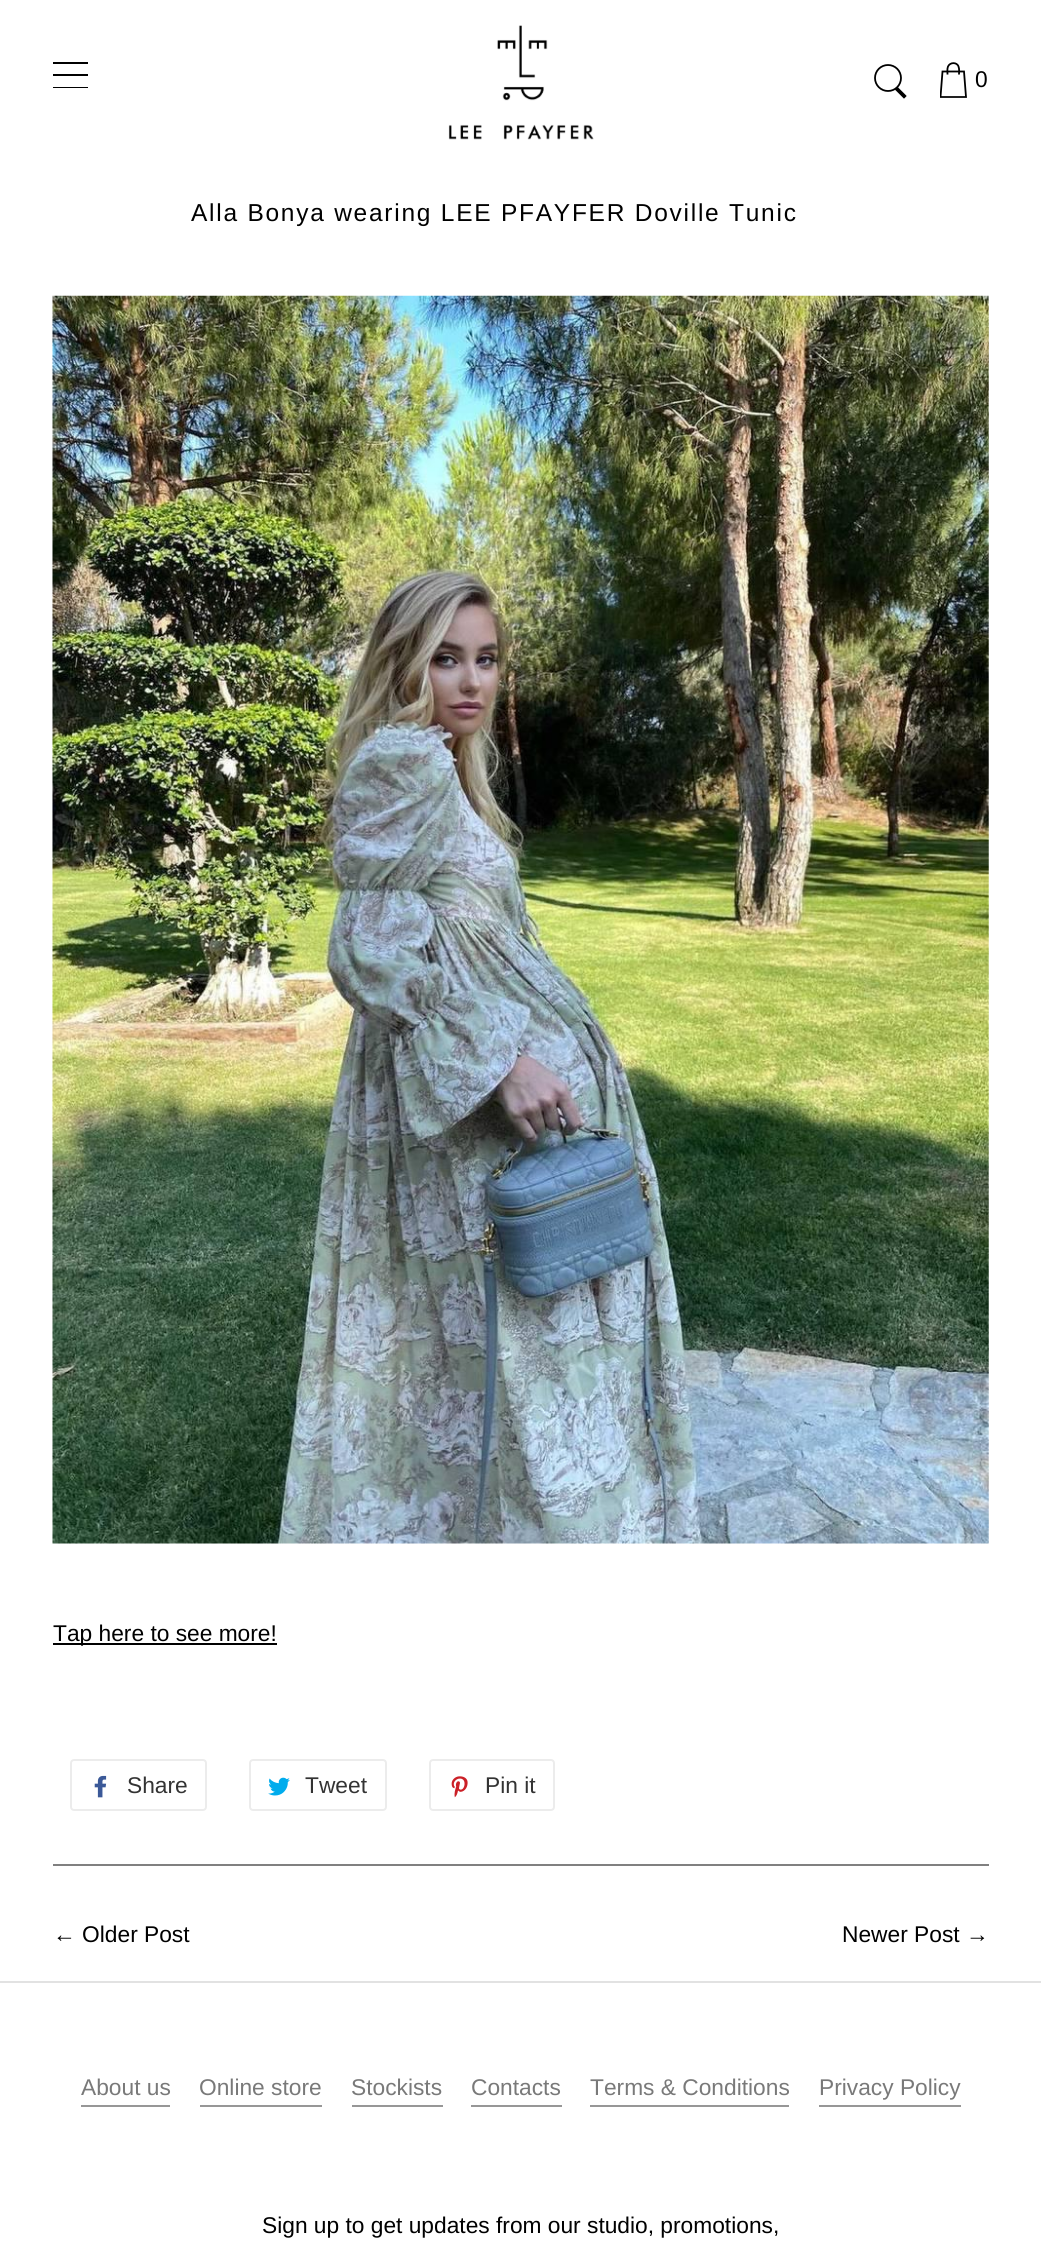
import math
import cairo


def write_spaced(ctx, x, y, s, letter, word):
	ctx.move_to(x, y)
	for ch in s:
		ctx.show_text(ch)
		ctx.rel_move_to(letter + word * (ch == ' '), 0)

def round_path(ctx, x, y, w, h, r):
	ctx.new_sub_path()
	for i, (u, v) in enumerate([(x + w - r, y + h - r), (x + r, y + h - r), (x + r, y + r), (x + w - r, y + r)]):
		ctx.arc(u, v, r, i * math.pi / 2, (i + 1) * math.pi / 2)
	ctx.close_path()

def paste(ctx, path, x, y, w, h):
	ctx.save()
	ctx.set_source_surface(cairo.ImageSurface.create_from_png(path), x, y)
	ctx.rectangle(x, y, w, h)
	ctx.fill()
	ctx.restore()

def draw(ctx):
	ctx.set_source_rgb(1, 1, 1)
	ctx.paint()
	ctx.set_source_rgb(0, 0, 0)
	ctx.rectangle(53, 62, 35, 2)
	ctx.rectangle(53, 74, 35, 2)
	ctx.rectangle(53, 87, 35, 1)
	ctx.fill()
	paste(ctx, 'media/1.png', 448, 25, 146, 115)
	ctx.arc(888, 78, 13, 0, 2 * math.pi)
	ctx.set_line_width(1.8)
	ctx.stroke()
	ctx.new_path()
	ctx.move_to(897.5, 88.5)
	ctx.line_to(905, 96)
	ctx.line_to(904, 97)
	ctx.line_to(896.5, 89.5)
	ctx.close_path()
	ctx.set_line_width(2.4)
	ctx.stroke()
	ctx.save()
	ctx.rectangle(940, 61, 28, 37)
	ctx.clip()
	ctx.new_path()
	ctx.move_to(942.5, 71.5)
	ctx.line_to(940.5, 97)
	ctx.line_to(966, 97)
	ctx.line_to(964, 71.5)
	ctx.close_path()
	ctx.set_line_width(1.8)
	ctx.stroke()
	ctx.restore()
	ctx.new_path()
	ctx.move_to(959, 74.5)
	ctx.curve_to(959, 72, 959.5, 69, 958.5, 66.5)
	ctx.curve_to(957, 62, 950, 62, 948, 66.5)
	ctx.curve_to(947, 69, 947.5, 72, 947.5, 74.5)
	ctx.set_line_width(1.8)
	ctx.stroke()
	ctx.select_font_face('Liberation Sans')
	ctx.set_font_size(22.75)
	write_spaced(ctx, 975, 87, '0', 1, 0)
	ctx.set_font_size(24.5)
	write_spaced(ctx, 191, 221, 'Alla Bonya wearing LEE PFAYFER Doville Tunic', 1.75, 0)
	paste(ctx, 'media/2.png', 52, 295, 937, 1249)
	ctx.rectangle(53, 1643, 224, 2)
	ctx.fill()
	ctx.set_font_size(22.75)
	ctx.move_to(53, 1641)
	ctx.show_text('Tap here to see more!')
	round_path(ctx, 71, 1760, 135, 50, 3)
	ctx.set_source_rgb(0.925, 0.925, 0.925)
	ctx.set_line_width(2)
	ctx.stroke()
	paste(ctx, 'media/3.png', 94, 1775, 13, 23)
	ctx.set_source_rgb(0.2, 0.2, 0.2)
	ctx.move_to(127, 1793)
	ctx.show_text('Share')
	round_path(ctx, 250, 1760, 136, 50, 3)
	ctx.set_source_rgb(0.925, 0.925, 0.925)
	ctx.stroke()
	paste(ctx, 'media/4.png', 268, 1777, 22, 19)
	ctx.set_source_rgb(0.2, 0.2, 0.2)
	ctx.move_to(305, 1793)
	ctx.show_text('Tweet')
	round_path(ctx, 430, 1760, 124, 50, 3)
	ctx.set_source_rgb(0.925, 0.925, 0.925)
	ctx.stroke()
	paste(ctx, 'media/5.png', 451, 1776, 17, 22)
	ctx.set_source_rgb(0.2, 0.2, 0.2)
	ctx.move_to(485, 1793)
	ctx.show_text('Pin it')
	ctx.set_source_rgb(0.502, 0.502, 0.502)
	ctx.rectangle(53, 1864, 936, 2)
	ctx.fill()
	ctx.set_source_rgb(0, 0, 0)
	ctx.move_to(53, 1942)
	ctx.show_text('← Older Post')
	ctx.move_to(842, 1942)
	ctx.show_text('Newer Post →')
	ctx.set_source_rgb(0.886, 0.886, 0.886)
	ctx.rectangle(0, 1981, 1041, 2)
	ctx.fill()
	ctx.set_source_rgb(0.592, 0.592, 0.592)
	ctx.rectangle(81, 2105, 89, 2)
	ctx.fill()
	ctx.set_source_rgb(0.475, 0.475, 0.475)
	ctx.move_to(81, 2095)
	ctx.show_text('About us')
	ctx.set_source_rgb(0.592, 0.592, 0.592)
	ctx.rectangle(200, 2105, 122, 2)
	ctx.fill()
	ctx.set_source_rgb(0.475, 0.475, 0.475)
	ctx.move_to(199, 2095)
	ctx.show_text('Online store')
	ctx.set_source_rgb(0.592, 0.592, 0.592)
	ctx.rectangle(352, 2105, 91, 2)
	ctx.fill()
	ctx.set_source_rgb(0.475, 0.475, 0.475)
	ctx.move_to(351, 2095)
	ctx.show_text('Stockists')
	ctx.set_source_rgb(0.592, 0.592, 0.592)
	ctx.rectangle(471, 2105, 91, 2)
	ctx.fill()
	ctx.set_source_rgb(0.475, 0.475, 0.475)
	ctx.move_to(471, 2095)
	ctx.show_text('Contacts')
	ctx.set_source_rgb(0.592, 0.592, 0.592)
	ctx.rectangle(590, 2105, 199, 2)
	ctx.fill()
	ctx.set_source_rgb(0.475, 0.475, 0.475)
	ctx.move_to(590, 2095)
	ctx.show_text('Terms & Conditions')
	ctx.set_source_rgb(0.592, 0.592, 0.592)
	ctx.rectangle(819, 2105, 142, 2)
	ctx.fill()
	ctx.set_source_rgb(0.475, 0.475, 0.475)
	ctx.move_to(819, 2095)
	ctx.show_text('Privacy Policy')
	ctx.set_source_rgb(0, 0, 0)
	ctx.move_to(262, 2233)
	ctx.show_text('Sign up to get updates from our studio, promotions,')


surface = cairo.ImageSurface(cairo.FORMAT_RGB24, 1041, 2265)
ctx = cairo.Context(surface)
options = cairo.FontOptions()
options.set_hint_metrics(cairo.HINT_METRICS_OFF)
options.set_hint_style(cairo.HINT_STYLE_NONE)
ctx.set_font_options(options)
ctx.set_miter_limit(4)
draw(ctx)
surface.write_to_png('image.png')
